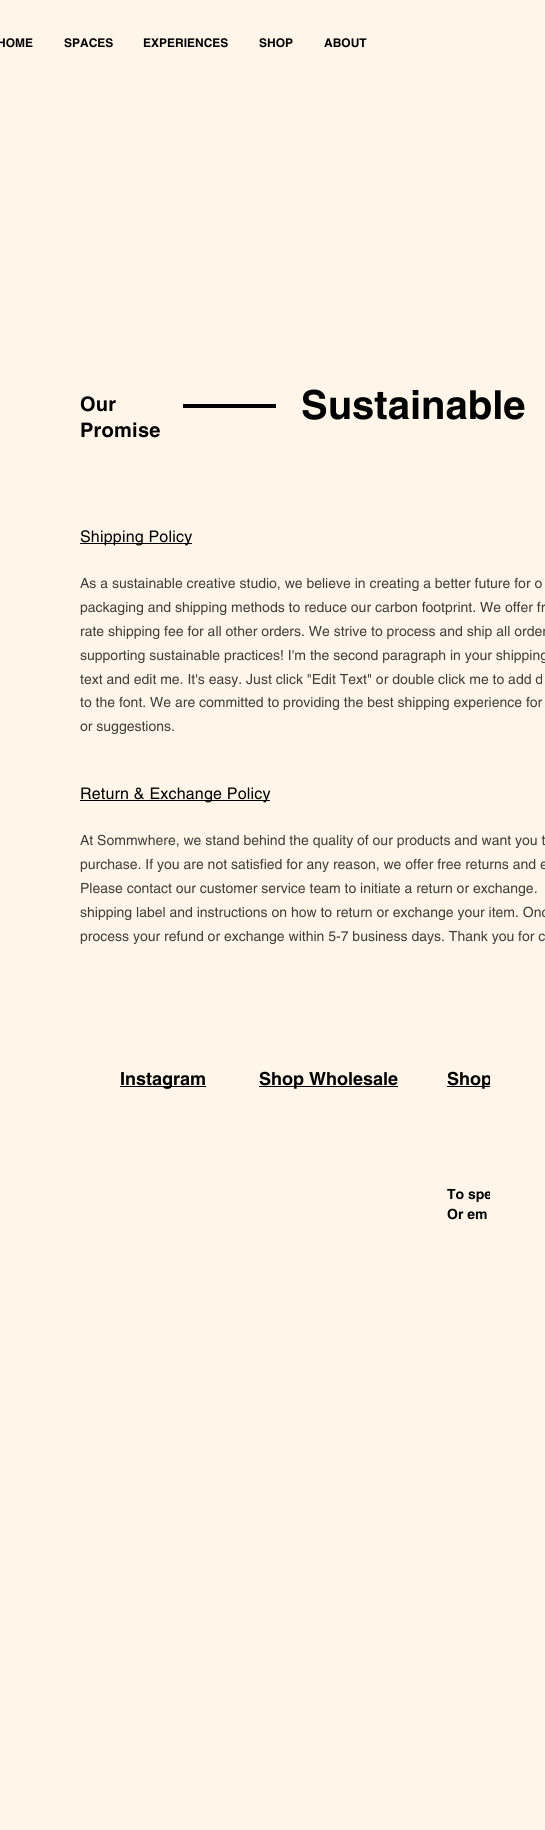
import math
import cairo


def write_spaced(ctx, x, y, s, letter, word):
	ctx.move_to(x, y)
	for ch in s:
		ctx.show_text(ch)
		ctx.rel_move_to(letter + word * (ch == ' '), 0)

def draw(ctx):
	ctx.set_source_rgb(1, 0.961, 0.914)
	ctx.paint()
	ctx.select_font_face('helvetica', cairo.FONT_SLANT_NORMAL, cairo.FONT_WEIGHT_BOLD)
	ctx.set_font_size(12)
	ctx.set_source_rgb(0, 0, 0)
	for x, y, s in [
		(-3, 47, 'HOME'),
		(64, 47, 'SPACES'),
		(143, 47, 'EXPERIENCES'),
		(259, 47, 'SHOP'),
		(324, 47, 'ABOUT'),
	]:
		ctx.move_to(x, y)
		ctx.show_text(s)
	ctx.set_font_size(20)
	write_spaced(ctx, 80, 411, 'Our', 0.25, 0)
	write_spaced(ctx, 80, 437, 'Promise', 0.25, 0)
	ctx.rectangle(183, 404, 93, 4)
	ctx.fill()
	ctx.set_font_size(40)
	ctx.move_to(301, 419)
	ctx.show_text('Sustainable')
	ctx.rectangle(80, 543, 112, 1)
	ctx.fill()
	ctx.select_font_face('helvetica')
	ctx.set_font_size(16)
	write_spaced(ctx, 80, 542, 'Shipping Policy', 0.2, 0)
	ctx.set_font_size(14)
	ctx.set_source_rgb(0.251, 0.239, 0.227)
	for x, y, s in [
		(80, 588, 'As a sustainable creative studio, we believe in creating a better future for o'),
		(80, 612, 'packaging and shipping methods to reduce our carbon footprint. We offer fr'),
		(80, 636, 'rate shipping fee for all other orders. We strive to process and ship all order'),
		(80, 660, 'supporting sustainable practices! I\'m the second paragraph in your shipping'),
		(80, 684, 'text and edit me. It\'s easy. Just click "Edit Text" or double click me to add d'),
		(80, 707, 'to the font. We are committed to providing the best shipping experience for'),
		(80, 731, 'or suggestions.'),
	]:
		ctx.move_to(x, y)
		ctx.show_text(s)
	ctx.set_source_rgb(0, 0, 0)
	ctx.rectangle(80, 800, 190, 1)
	ctx.fill()
	ctx.set_font_size(16)
	write_spaced(ctx, 80, 799, 'Return & Exchange Policy', 0.2, 0)
	ctx.set_font_size(14)
	ctx.set_source_rgb(0.251, 0.239, 0.227)
	for x, y, s in [
		(80, 845, 'At Sommwhere, we stand behind the quality of our products and want you t'),
		(80, 869, 'purchase. If you are not satisfied for any reason, we offer free returns and e'),
		(80, 893, 'Please contact our customer service team to initiate a return or exchange.'),
		(80, 917, 'shipping label and instructions on how to return or exchange your item. Onc'),
		(80, 941, 'process your refund or exchange within 5-7 business days. Thank you for c'),
	]:
		ctx.move_to(x, y)
		ctx.show_text(s)
	ctx.set_source_rgb(0, 0, 0)
	ctx.rectangle(120, 1086, 86, 1)
	ctx.fill()
	ctx.select_font_face('helvetica', cairo.FONT_SLANT_NORMAL, cairo.FONT_WEIGHT_BOLD)
	ctx.set_font_size(18)
	ctx.move_to(120, 1085)
	ctx.show_text('Instagram')
	ctx.rectangle(259, 1086, 139, 1)
	ctx.fill()
	ctx.move_to(259, 1085)
	ctx.show_text('Shop Wholesale')
	ctx.rectangle(447, 1086, 43, 1)
	ctx.fill()
	ctx.move_to(447, 1085)
	ctx.show_text('Shop')
	ctx.set_font_size(14)
	ctx.move_to(447, 1199)
	ctx.show_text('To spe')
	ctx.move_to(447, 1219)
	ctx.show_text('Or em')
	ctx.set_source_rgb(1, 0.961, 0.914)
	ctx.rectangle(490, 1076, 2, 123)
	ctx.fill()


surface = cairo.ImageSurface(cairo.FORMAT_RGB24, 545, 1830)
ctx = cairo.Context(surface)
options = cairo.FontOptions()
options.set_hint_metrics(cairo.HINT_METRICS_OFF)
options.set_hint_style(cairo.HINT_STYLE_NONE)
ctx.set_font_options(options)
ctx.set_miter_limit(4)
draw(ctx)
surface.write_to_png('image.png')
